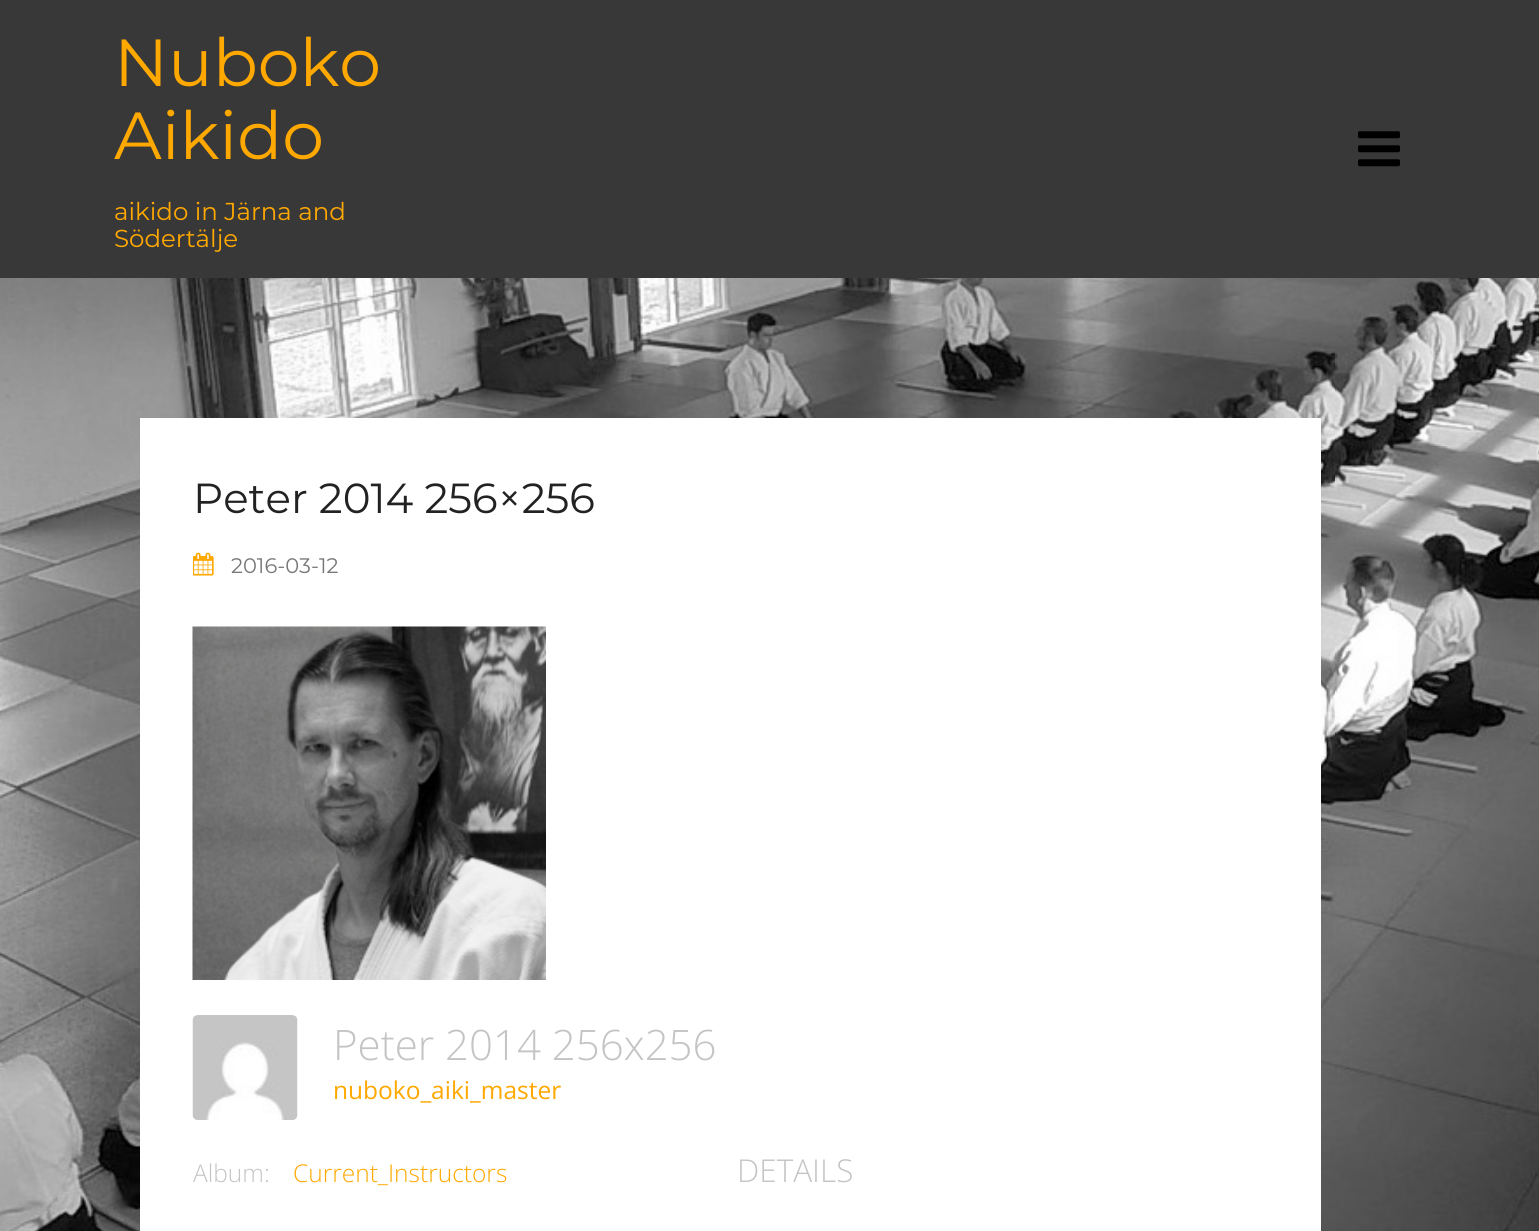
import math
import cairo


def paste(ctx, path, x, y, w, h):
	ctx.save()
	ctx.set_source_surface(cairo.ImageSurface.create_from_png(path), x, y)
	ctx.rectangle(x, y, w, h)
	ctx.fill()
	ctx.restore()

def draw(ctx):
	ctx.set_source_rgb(1, 1, 1)
	ctx.paint()
	paste(ctx, 'media/1.png', 0, 278, 1539, 953)
	ctx.set_source_rgb(0.22, 0.22, 0.22)
	ctx.rectangle(0, 0, 1539, 278)
	ctx.fill()
	ctx.select_font_face('Montserrat')
	ctx.set_font_size(66.5)
	ctx.set_source_rgb(1, 0.659, 0)
	ctx.move_to(114, 86)
	ctx.show_text('Nuboko')
	ctx.move_to(114, 159)
	ctx.show_text('Aikido')
	ctx.set_font_size(24.5)
	ctx.move_to(114, 220)
	ctx.show_text('aikido in Järna and')
	ctx.move_to(114, 247)
	ctx.show_text('Södertälje')
	paste(ctx, 'media/2.png', 1358, 131, 42, 36)
	ctx.set_source_rgb(1, 1, 1)
	ctx.rectangle(140, 418, 1181, 813)
	ctx.fill()
	ctx.set_font_size(42)
	ctx.set_source_rgb(0.133, 0.133, 0.133)
	ctx.move_to(193, 513)
	ctx.show_text('Peter 2014 256×256')
	paste(ctx, 'media/3.png', 193, 552, 21, 24)
	ctx.set_font_size(21)
	ctx.set_source_rgb(0.467, 0.467, 0.467)
	ctx.move_to(231, 573)
	ctx.show_text('2016-03-12')
	paste(ctx, 'media/4.png', 192, 626, 354, 354)
	paste(ctx, 'media/5.png', 192, 1015, 106, 105)
	ctx.select_font_face('Open Sans Light')
	ctx.set_font_size(42)
	ctx.set_source_rgb(0.769, 0.769, 0.769)
	ctx.move_to(333, 1060)
	ctx.show_text('Peter 2014 256x256')
	ctx.select_font_face('Open Sans')
	ctx.set_font_size(24.5)
	ctx.set_source_rgb(1, 0.659, 0)
	ctx.move_to(333, 1099)
	ctx.show_text('nuboko_aiki_master')
	ctx.select_font_face('Open Sans Light')
	ctx.set_source_rgb(0.769, 0.769, 0.769)
	ctx.move_to(193, 1182)
	ctx.show_text('Album:')
	ctx.set_source_rgb(1, 0.659, 0)
	ctx.move_to(293, 1182)
	ctx.show_text('Current_Instructors')
	ctx.set_font_size(31.5)
	ctx.set_source_rgb(0.769, 0.769, 0.769)
	ctx.move_to(737, 1182)
	ctx.show_text('DETAILS')


surface = cairo.ImageSurface(cairo.FORMAT_RGB24, 1539, 1231)
ctx = cairo.Context(surface)
options = cairo.FontOptions()
options.set_hint_metrics(cairo.HINT_METRICS_OFF)
options.set_hint_style(cairo.HINT_STYLE_NONE)
ctx.set_font_options(options)
ctx.set_miter_limit(4)
draw(ctx)
surface.write_to_png('image.png')
